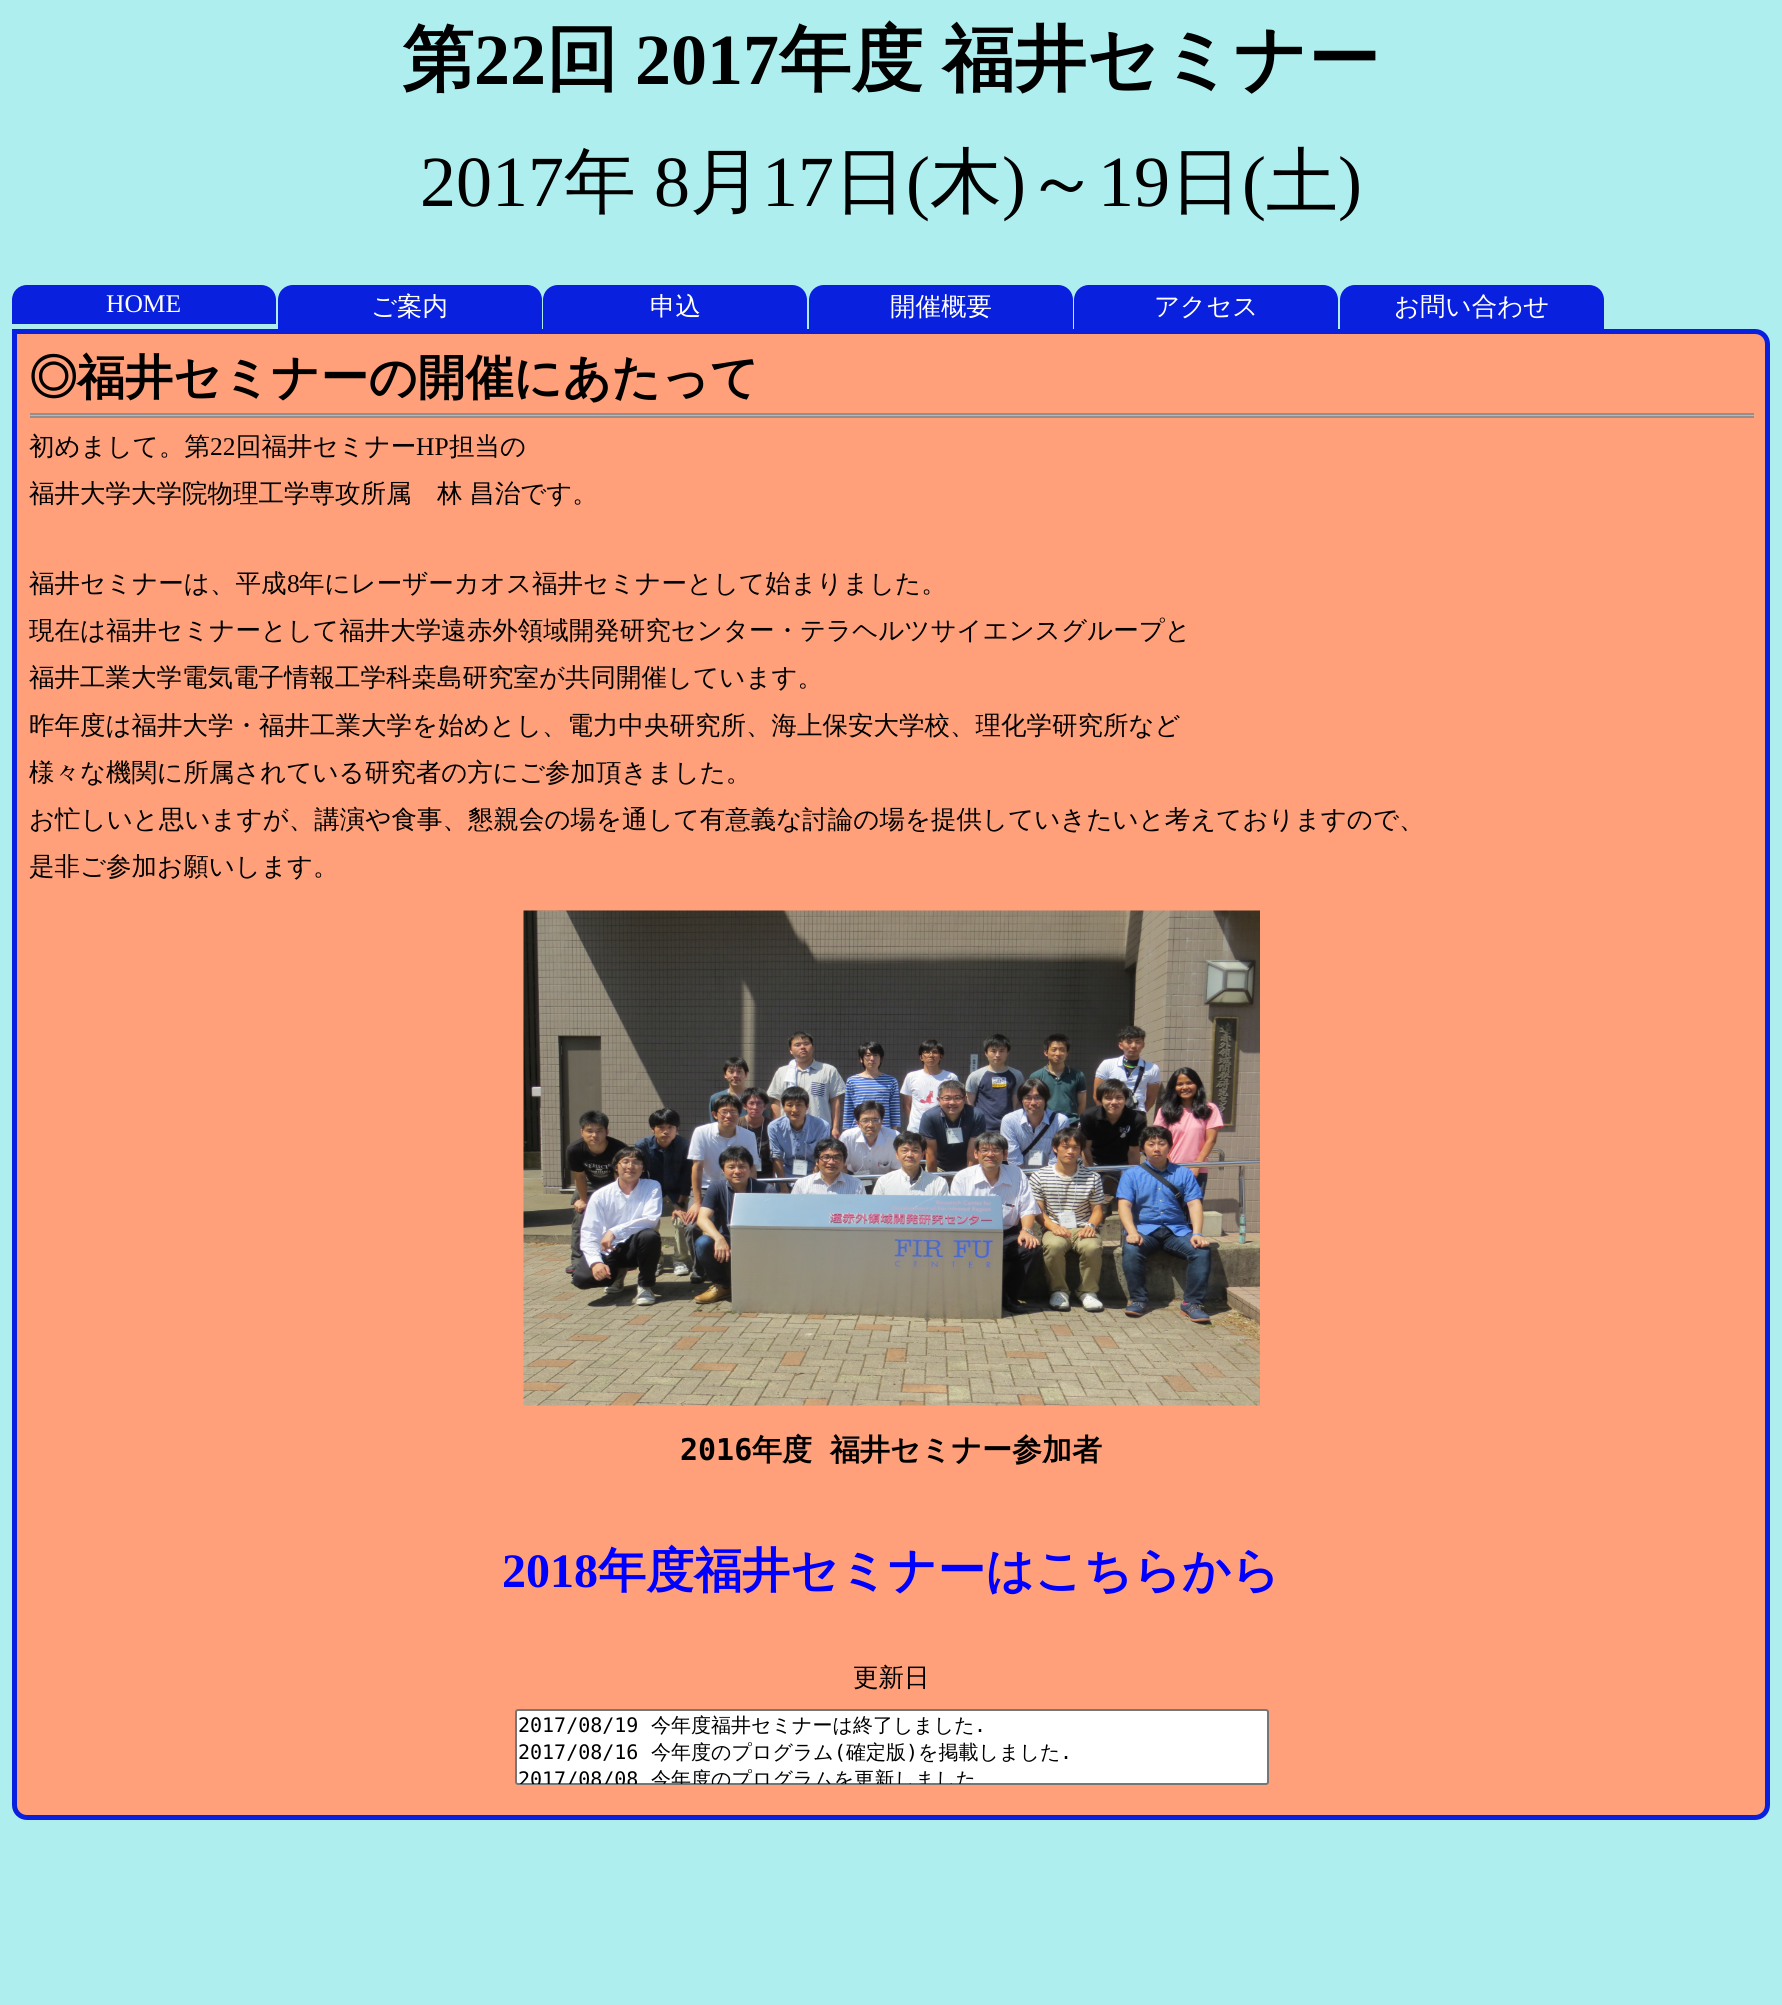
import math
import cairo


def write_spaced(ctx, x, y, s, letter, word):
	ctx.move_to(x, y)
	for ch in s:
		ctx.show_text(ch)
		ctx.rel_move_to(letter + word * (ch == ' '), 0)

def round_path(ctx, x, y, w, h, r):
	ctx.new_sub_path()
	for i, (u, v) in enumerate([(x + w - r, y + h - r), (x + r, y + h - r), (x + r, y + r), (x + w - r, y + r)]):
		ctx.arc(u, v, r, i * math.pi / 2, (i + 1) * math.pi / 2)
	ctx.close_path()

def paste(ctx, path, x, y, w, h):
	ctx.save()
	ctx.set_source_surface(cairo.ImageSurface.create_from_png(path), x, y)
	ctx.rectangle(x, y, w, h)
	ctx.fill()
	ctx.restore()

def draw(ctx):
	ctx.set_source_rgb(0.686, 0.933, 0.933)
	ctx.paint()
	ctx.select_font_face('WenQuanYi Zen Hei', cairo.FONT_SLANT_NORMAL, cairo.FONT_WEIGHT_BOLD)
	ctx.set_font_size(72)
	ctx.set_source_rgb(0, 0, 0)
	ctx.move_to(402, 84)
	ctx.show_text('第')
	ctx.select_font_face('Liberation Serif', cairo.FONT_SLANT_NORMAL, cairo.FONT_WEIGHT_BOLD)
	ctx.move_to(474, 84)
	ctx.show_text('22')
	ctx.select_font_face('WenQuanYi Zen Hei', cairo.FONT_SLANT_NORMAL, cairo.FONT_WEIGHT_BOLD)
	ctx.move_to(546, 84)
	ctx.show_text('回')
	ctx.select_font_face('Liberation Serif', cairo.FONT_SLANT_NORMAL, cairo.FONT_WEIGHT_BOLD)
	ctx.move_to(635, 84)
	ctx.show_text('2017')
	ctx.select_font_face('WenQuanYi Zen Hei', cairo.FONT_SLANT_NORMAL, cairo.FONT_WEIGHT_BOLD)
	write_spaced(ctx, 779, 84, '年度 福井セミナー', 0, -2)
	ctx.select_font_face('Liberation Serif')
	ctx.move_to(420, 206)
	ctx.show_text('2017')
	ctx.select_font_face('WenQuanYi Zen Hei Medium')
	ctx.move_to(564, 206)
	ctx.show_text('年')
	ctx.select_font_face('Liberation Serif')
	ctx.move_to(654, 206)
	ctx.show_text('8')
	ctx.select_font_face('WenQuanYi Zen Hei Medium')
	ctx.move_to(690, 206)
	ctx.show_text('月')
	ctx.select_font_face('Liberation Serif')
	ctx.move_to(762, 206)
	ctx.show_text('17')
	ctx.select_font_face('WenQuanYi Zen Hei Medium')
	ctx.move_to(834, 206)
	ctx.show_text('日')
	ctx.select_font_face('Liberation Serif')
	ctx.move_to(906, 206)
	ctx.show_text('(')
	ctx.select_font_face('WenQuanYi Zen Hei Medium')
	ctx.move_to(930, 206)
	ctx.show_text('木')
	ctx.select_font_face('Liberation Serif')
	ctx.move_to(1002, 206)
	ctx.show_text(')')
	ctx.select_font_face('WenQuanYi Zen Hei Medium')
	ctx.move_to(1026, 206)
	ctx.show_text('～')
	ctx.select_font_face('Liberation Serif')
	ctx.move_to(1098, 206)
	ctx.show_text('19')
	ctx.select_font_face('WenQuanYi Zen Hei Medium')
	ctx.move_to(1170, 206)
	ctx.show_text('日')
	ctx.select_font_face('Liberation Serif')
	ctx.move_to(1242, 206)
	ctx.show_text('(')
	ctx.select_font_face('WenQuanYi Zen Hei Medium')
	ctx.move_to(1266, 206)
	ctx.show_text('土')
	ctx.select_font_face('Liberation Serif')
	ctx.move_to(1338, 206)
	ctx.show_text(')')
	ctx.set_source_rgb(0.039, 0.125, 0.871)
	ctx.new_path()
	ctx.move_to(27, 285)
	ctx.line_to(261, 285)
	ctx.curve_to(269.5, 285, 276, 291.5, 276, 300)
	ctx.line_to(276, 324)
	ctx.line_to(12, 324)
	ctx.line_to(12, 300)
	ctx.curve_to(12, 291.5, 18.5, 285, 27, 285)
	ctx.close_path()
	ctx.fill()
	ctx.set_font_size(25.5)
	ctx.set_source_rgb(1, 1, 1)
	ctx.move_to(106, 312)
	ctx.show_text('HOME')
	ctx.set_source_rgb(0.039, 0.125, 0.871)
	ctx.new_path()
	ctx.move_to(293, 285)
	ctx.line_to(527, 285)
	ctx.curve_to(535.5, 285, 542, 291.5, 542, 300)
	ctx.line_to(542, 329)
	ctx.line_to(278, 329)
	ctx.line_to(278, 300)
	ctx.curve_to(278, 291.5, 284.5, 285, 293, 285)
	ctx.close_path()
	ctx.fill()
	ctx.select_font_face('WenQuanYi Zen Hei Medium')
	ctx.set_source_rgb(1, 1, 1)
	ctx.move_to(371, 315)
	ctx.show_text('ご案内')
	ctx.set_source_rgb(0.039, 0.125, 0.871)
	ctx.new_path()
	ctx.move_to(558, 285)
	ctx.line_to(792, 285)
	ctx.curve_to(800.5, 285, 807, 291.5, 807, 300)
	ctx.line_to(807, 329)
	ctx.line_to(543, 329)
	ctx.line_to(543, 300)
	ctx.curve_to(543, 291.5, 549.5, 285, 558, 285)
	ctx.close_path()
	ctx.fill()
	ctx.set_source_rgb(1, 1, 1)
	ctx.move_to(650, 315)
	ctx.show_text('申込')
	ctx.set_source_rgb(0.039, 0.125, 0.871)
	ctx.new_path()
	ctx.move_to(824, 285)
	ctx.line_to(1058, 285)
	ctx.curve_to(1066.5, 285, 1073, 291.5, 1073, 300)
	ctx.line_to(1073, 329)
	ctx.line_to(809, 329)
	ctx.line_to(809, 300)
	ctx.curve_to(809, 291.5, 815.5, 285, 824, 285)
	ctx.close_path()
	ctx.fill()
	ctx.set_source_rgb(1, 1, 1)
	ctx.move_to(890, 315)
	ctx.show_text('開催概要')
	ctx.set_source_rgb(0.039, 0.125, 0.871)
	ctx.new_path()
	ctx.move_to(1089, 285)
	ctx.line_to(1323, 285)
	ctx.curve_to(1331.5, 285, 1338, 291.5, 1338, 300)
	ctx.line_to(1338, 329)
	ctx.line_to(1074, 329)
	ctx.line_to(1074, 300)
	ctx.curve_to(1074, 291.5, 1080.5, 285, 1089, 285)
	ctx.close_path()
	ctx.fill()
	ctx.set_source_rgb(1, 1, 1)
	ctx.move_to(1154, 315)
	ctx.show_text('アクセス')
	ctx.set_source_rgb(0.039, 0.125, 0.871)
	ctx.new_path()
	ctx.move_to(1355, 285)
	ctx.line_to(1589, 285)
	ctx.curve_to(1597.5, 285, 1604, 291.5, 1604, 300)
	ctx.line_to(1604, 329)
	ctx.line_to(1340, 329)
	ctx.line_to(1340, 300)
	ctx.curve_to(1340, 291.5, 1346.5, 285, 1355, 285)
	ctx.close_path()
	ctx.fill()
	ctx.set_source_rgb(1, 1, 1)
	ctx.move_to(1394, 315)
	ctx.show_text('お問い合わせ')
	ctx.set_source_rgb(1, 0.627, 0.478)
	ctx.new_path()
	ctx.move_to(14.5, 331.5)
	ctx.line_to(1755, 331.5)
	ctx.curve_to(1762, 331.5, 1767.5, 337, 1767.5, 344)
	ctx.line_to(1767.5, 1805)
	ctx.curve_to(1767.5, 1812, 1762, 1817.5, 1755, 1817.5)
	ctx.line_to(27, 1817.5)
	ctx.curve_to(20, 1817.5, 14.5, 1812, 14.5, 1805)
	ctx.close_path()
	ctx.fill_preserve()
	ctx.set_source_rgb(0.039, 0.125, 0.871)
	ctx.set_line_width(5)
	ctx.stroke()
	ctx.set_source_rgb(0.569, 0.561, 0.561)
	ctx.rectangle(30, 413, 1724, 2)
	ctx.fill()
	ctx.rectangle(30, 416, 1724, 2)
	ctx.fill()
	ctx.select_font_face('WenQuanYi Zen Hei', cairo.FONT_SLANT_NORMAL, cairo.FONT_WEIGHT_BOLD)
	ctx.set_font_size(48)
	ctx.set_source_rgb(0, 0, 0)
	ctx.move_to(29, 394)
	ctx.show_text('◎福井セミナーの開催にあたって')
	ctx.select_font_face('WenQuanYi Zen Hei Medium')
	ctx.set_font_size(25.5)
	ctx.move_to(29, 455)
	ctx.show_text('初めまして。第')
	ctx.select_font_face('Liberation Serif')
	ctx.move_to(210, 455)
	ctx.show_text('22')
	ctx.select_font_face('WenQuanYi Zen Hei Medium')
	ctx.move_to(236, 455)
	ctx.show_text('回福井セミナー')
	ctx.select_font_face('Liberation Serif')
	ctx.move_to(416, 455)
	ctx.show_text('HP')
	ctx.select_font_face('WenQuanYi Zen Hei Medium')
	ctx.move_to(449, 455)
	ctx.show_text('担当の')
	write_spaced(ctx, 29, 502, '福井大学大学院物理工学専攻所属　林 昌治です。', 0, -1)
	ctx.move_to(29, 592)
	ctx.show_text('福井セミナーは、平成')
	ctx.select_font_face('Liberation Serif')
	ctx.move_to(287, 592)
	ctx.show_text('8')
	ctx.select_font_face('WenQuanYi Zen Hei Medium')
	for x, y, s in [
		(299, 592, '年にレーザーカオス福井セミナーとして始まりました。'),
		(29, 639, '現在は福井セミナーとして福井大学遠赤外領域開発研究センター・テラヘルツサイエンスグループと'),
		(29, 686, '福井工業大学電気電子情報工学科桒島研究室が共同開催しています。'),
		(29, 734, '昨年度は福井大学・福井工業大学を始めとし、電力中央研究所、海上保安大学校、理化学研究所など'),
		(29, 781, '様々な機関に所属されている研究者の方にご参加頂きました。'),
		(29, 828, 'お忙しいと思いますが、講演や食事、懇親会の場を通して有意義な討論の場を提供していきたいと考えておりますので、'),
		(29, 875, '是非ご参加お願いします。'),
	]:
		ctx.move_to(x, y)
		ctx.show_text(s)
	paste(ctx, 'media/1.png', 523, 910, 737, 496)
	ctx.select_font_face('DejaVu Sans Mono', cairo.FONT_SLANT_NORMAL, cairo.FONT_WEIGHT_BOLD)
	ctx.set_font_size(30)
	ctx.move_to(680, 1460)
	ctx.show_text('2016')
	ctx.select_font_face('WenQuanYi Zen Hei', cairo.FONT_SLANT_NORMAL, cairo.FONT_WEIGHT_BOLD)
	write_spaced(ctx, 752, 1460, '年度 福井セミナー参加者', 0, 9)
	ctx.select_font_face('Liberation Serif', cairo.FONT_SLANT_NORMAL, cairo.FONT_WEIGHT_BOLD)
	ctx.set_font_size(48)
	ctx.set_source_rgb(0, 0, 1)
	ctx.move_to(502, 1587)
	ctx.show_text('2018')
	ctx.select_font_face('WenQuanYi Zen Hei', cairo.FONT_SLANT_NORMAL, cairo.FONT_WEIGHT_BOLD)
	ctx.move_to(598, 1587)
	ctx.show_text('年度福井セミナーはこちらから')
	ctx.select_font_face('WenQuanYi Zen Hei Medium')
	ctx.set_font_size(25.5)
	ctx.set_source_rgb(0, 0, 0)
	ctx.move_to(853, 1686)
	ctx.show_text('更新日')
	ctx.set_source_rgb(1, 1, 1)
	round_path(ctx, 516, 1710, 752, 74, 2)
	ctx.fill_preserve()
	ctx.set_source_rgb(0.463, 0.463, 0.463)
	ctx.set_line_width(2)
	ctx.stroke()
	ctx.select_font_face('DejaVu Sans Mono')
	ctx.set_font_size(20)
	ctx.set_source_rgb(0, 0, 0)
	ctx.move_to(518, 1732)
	ctx.show_text('2017/08/19')
	ctx.select_font_face('WenQuanYi Zen Hei Medium')
	ctx.move_to(651, 1732)
	ctx.show_text('今年度福井セミナーは終了しました')
	ctx.select_font_face('DejaVu Sans Mono')
	ctx.move_to(974, 1732)
	ctx.show_text('.')
	ctx.move_to(518, 1759)
	ctx.show_text('2017/08/16')
	ctx.select_font_face('WenQuanYi Zen Hei Medium')
	ctx.move_to(651, 1759)
	ctx.show_text('今年度のプログラム')
	ctx.select_font_face('DejaVu Sans Mono')
	ctx.move_to(834, 1759)
	ctx.show_text('(')
	ctx.select_font_face('WenQuanYi Zen Hei Medium')
	ctx.move_to(846, 1759)
	ctx.show_text('確定版')
	ctx.select_font_face('DejaVu Sans Mono')
	ctx.move_to(906, 1759)
	ctx.show_text(')')
	ctx.select_font_face('WenQuanYi Zen Hei Medium')
	ctx.move_to(918, 1759)
	ctx.show_text('を掲載しました')
	ctx.select_font_face('DejaVu Sans Mono')
	ctx.move_to(1060, 1759)
	ctx.show_text('.')
	ctx.save()
	ctx.rectangle(516, 1710, 752, 74)
	ctx.clip()
	ctx.move_to(518, 1786)
	ctx.show_text('2017/08/08')
	ctx.select_font_face('WenQuanYi Zen Hei Medium')
	ctx.move_to(651, 1786)
	ctx.show_text('今年度のプログラムを更新しました')
	ctx.restore()


surface = cairo.ImageSurface(cairo.FORMAT_RGB24, 1782, 2005)
ctx = cairo.Context(surface)
options = cairo.FontOptions()
options.set_hint_metrics(cairo.HINT_METRICS_OFF)
options.set_hint_style(cairo.HINT_STYLE_NONE)
ctx.set_font_options(options)
ctx.set_miter_limit(4)
draw(ctx)
surface.write_to_png('image.png')
